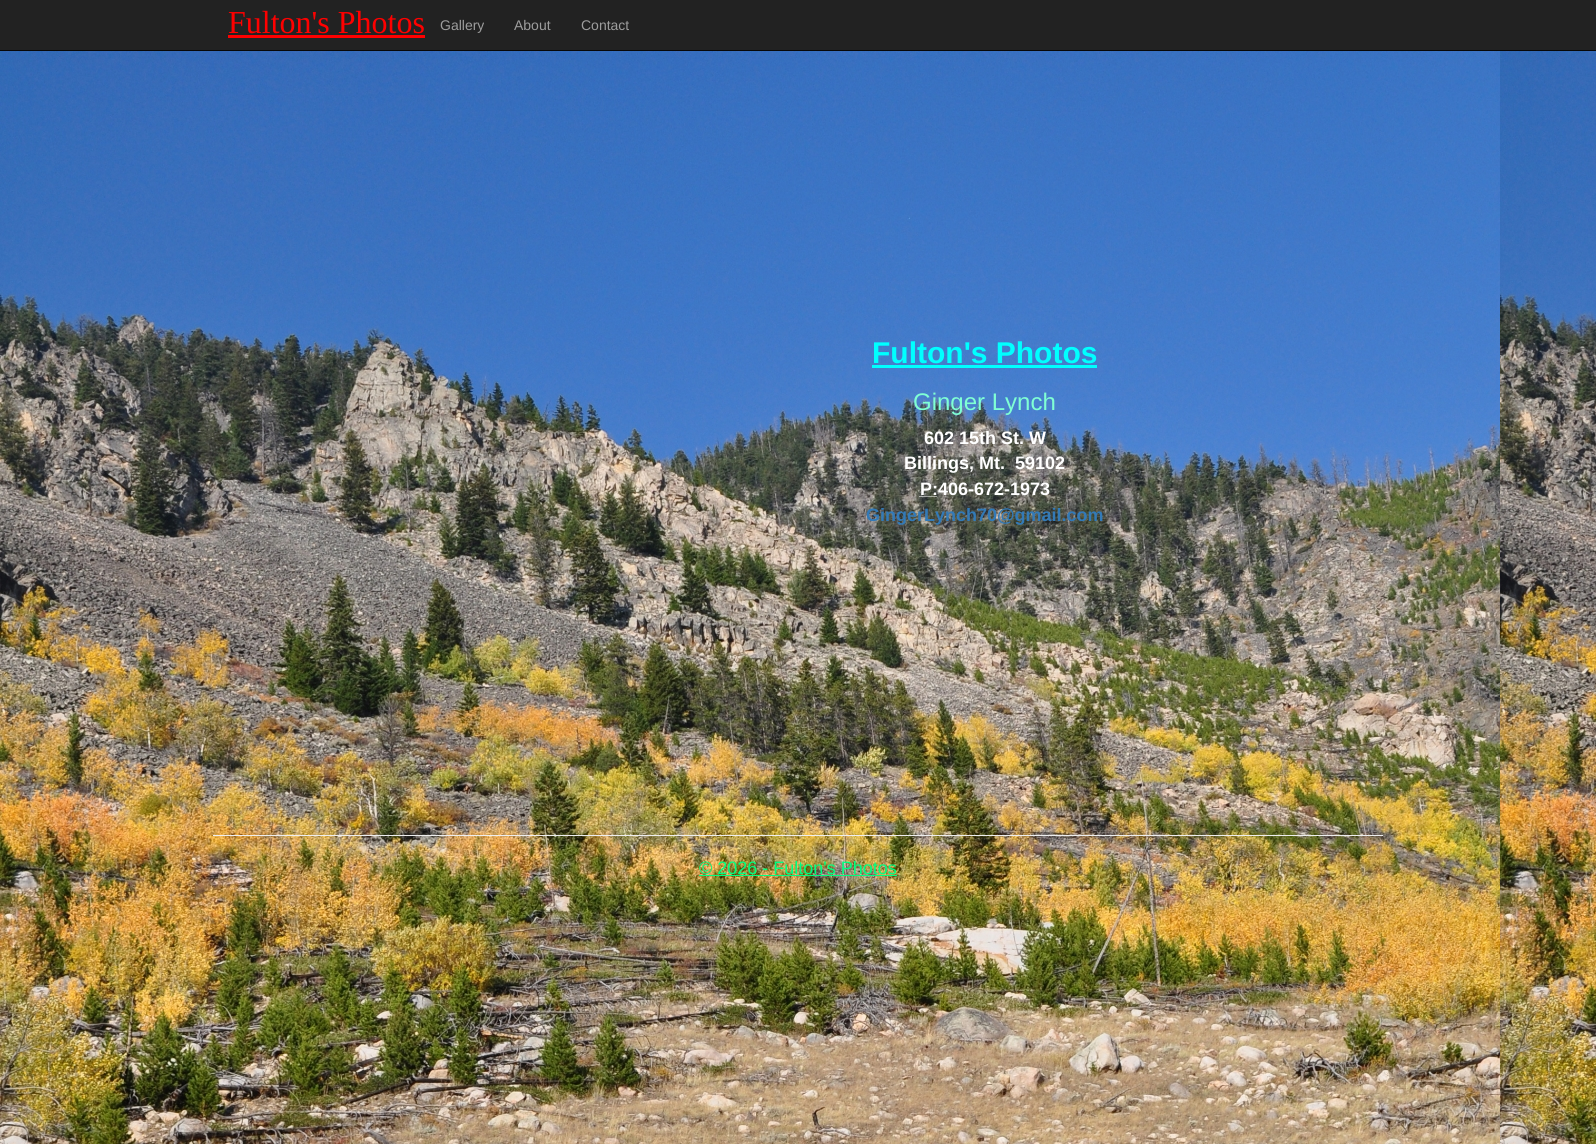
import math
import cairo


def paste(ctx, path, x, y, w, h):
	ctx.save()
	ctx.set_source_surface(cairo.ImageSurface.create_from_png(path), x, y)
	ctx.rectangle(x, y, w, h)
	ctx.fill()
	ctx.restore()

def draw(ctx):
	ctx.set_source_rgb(1, 1, 1)
	ctx.paint()
	paste(ctx, 'media/1.png', 0, 51, 1596, 1093)
	ctx.set_source_rgb(0.133, 0.133, 0.133)
	ctx.rectangle(0, 0, 1596, 50)
	ctx.fill()
	ctx.set_source_rgb(0.031, 0.031, 0.031)
	ctx.rectangle(0, 50, 1596, 1)
	ctx.fill()
	ctx.select_font_face('Liberation Serif')
	ctx.set_font_size(32)
	ctx.set_source_rgb(1, 0, 0)
	ctx.move_to(228, 33)
	ctx.show_text('Fulton\'s Photos')
	ctx.rectangle(228, 35, 197, 3)
	ctx.fill()
	ctx.select_font_face('Liberation Sans')
	ctx.set_font_size(14)
	ctx.set_source_rgb(0.616, 0.616, 0.616)
	for x, y, s in [
		(440, 30, 'Gallery'),
		(514, 30, 'About'),
		(581, 30, 'Contact'),
	]:
		ctx.move_to(x, y)
		ctx.show_text(s)
	ctx.select_font_face('Liberation Sans', cairo.FONT_SLANT_NORMAL, cairo.FONT_WEIGHT_BOLD)
	ctx.set_font_size(30)
	ctx.set_source_rgb(0, 1, 1)
	ctx.move_to(872, 363)
	ctx.show_text('Fulton\'s Photos')
	ctx.rectangle(872, 365, 225, 3)
	ctx.fill()
	ctx.select_font_face('Liberation Sans')
	ctx.set_font_size(24)
	ctx.set_source_rgb(0.498, 1, 0.831)
	ctx.move_to(913, 410)
	ctx.show_text('Ginger Lynch')
	ctx.select_font_face('Liberation Sans', cairo.FONT_SLANT_NORMAL, cairo.FONT_WEIGHT_BOLD)
	ctx.set_font_size(18)
	ctx.set_source_rgb(1, 1, 1)
	for x, y, s in [
		(924, 444, '602 15th St. W'),
		(904, 469, 'Billings, Mt.  59102'),
		(920, 495, 'P:406-672-1973'),
	]:
		ctx.move_to(x, y)
		ctx.show_text(s)
	ctx.new_path()
	ctx.move_to(919.5, 496.5)
	ctx.line_to(937.5, 496.5)
	ctx.set_line_width(1)
	ctx.set_dash([1, 1])
	ctx.stroke()
	ctx.set_source_rgb(0.2, 0.478, 0.718)
	ctx.move_to(866, 521)
	ctx.show_text('GingerLynch70@gmail.com')
	ctx.set_source_rgb(0.933, 0.933, 0.933)
	ctx.rectangle(213, 835, 1170, 1)
	ctx.fill()
	ctx.select_font_face('Liberation Sans')
	ctx.set_source_rgb(0, 1, 0.498)
	ctx.move_to(699, 874)
	ctx.show_text('© 2026 - Fulton\'s Photos')
	ctx.rectangle(699, 875, 198, 1)
	ctx.fill()


surface = cairo.ImageSurface(cairo.FORMAT_RGB24, 1596, 1144)
ctx = cairo.Context(surface)
options = cairo.FontOptions()
options.set_hint_metrics(cairo.HINT_METRICS_OFF)
options.set_hint_style(cairo.HINT_STYLE_NONE)
ctx.set_font_options(options)
ctx.set_miter_limit(4)
draw(ctx)
surface.write_to_png('image.png')
